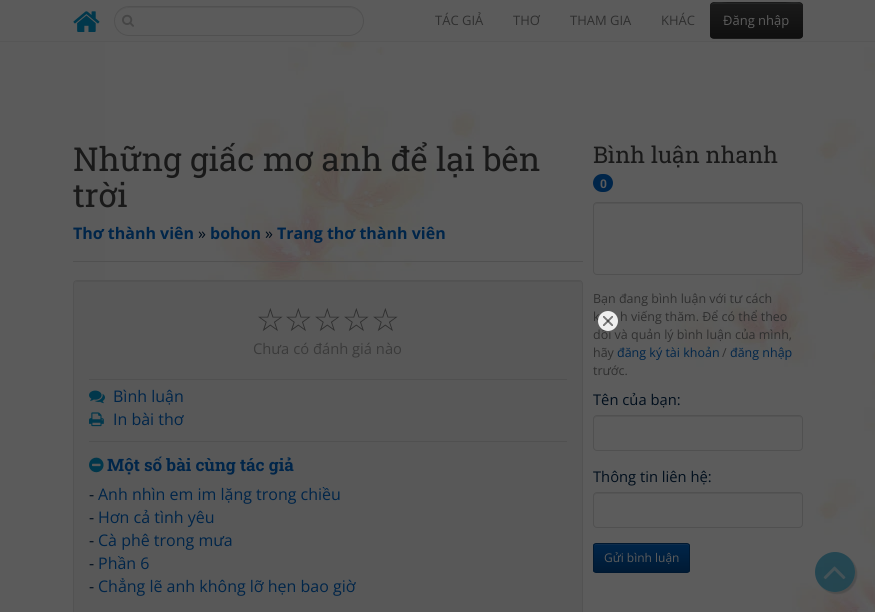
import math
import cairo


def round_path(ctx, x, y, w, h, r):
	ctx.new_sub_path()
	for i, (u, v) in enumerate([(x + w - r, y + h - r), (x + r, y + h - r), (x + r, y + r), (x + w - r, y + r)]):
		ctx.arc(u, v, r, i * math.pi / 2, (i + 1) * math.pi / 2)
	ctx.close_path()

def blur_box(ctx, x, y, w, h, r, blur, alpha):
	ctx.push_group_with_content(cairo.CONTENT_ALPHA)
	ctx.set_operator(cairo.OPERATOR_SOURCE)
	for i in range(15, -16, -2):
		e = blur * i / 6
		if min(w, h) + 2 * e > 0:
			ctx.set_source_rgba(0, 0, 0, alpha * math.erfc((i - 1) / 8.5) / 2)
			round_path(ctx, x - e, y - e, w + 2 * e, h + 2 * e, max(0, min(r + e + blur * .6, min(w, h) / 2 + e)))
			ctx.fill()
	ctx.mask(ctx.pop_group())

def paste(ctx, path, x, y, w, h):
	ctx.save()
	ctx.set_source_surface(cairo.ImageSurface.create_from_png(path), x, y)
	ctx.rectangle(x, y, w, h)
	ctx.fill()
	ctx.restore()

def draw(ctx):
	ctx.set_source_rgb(0.357, 0.357, 0.357)
	ctx.paint()
	paste(ctx, 'media/1.png', 105, 42, 770, 570)
	ctx.set_source_rgb(0.337, 0.337, 0.337)
	ctx.rectangle(0, 41, 875, 1)
	ctx.fill()
	paste(ctx, 'media/2.png', 73, 11, 27, 21)
	ctx.set_source_rgb(0.333, 0.333, 0.333)
	ctx.new_path()
	ctx.move_to(129, 8)
	ctx.line_to(349, 8)
	ctx.curve_to(357, 8, 363, 14, 363, 21)
	ctx.curve_to(363, 14, 357, 7, 349, 7)
	ctx.line_to(129, 7)
	ctx.curve_to(121, 7, 115, 14, 115, 21)
	ctx.curve_to(115, 14, 121, 8, 129, 8)
	ctx.close_path()
	ctx.fill()
	round_path(ctx, 114.5, 6.5, 249, 29, 14.5)
	ctx.set_source_rgb(0.314, 0.314, 0.314)
	ctx.set_line_width(1)
	ctx.stroke()
	paste(ctx, 'media/3.png', 122, 14, 12, 13)
	ctx.select_font_face('Open Sans')
	ctx.set_font_size(13)
	ctx.set_source_rgb(0.18, 0.18, 0.18)
	for x, y, s in [
		(435, 25, 'TÁC GIẢ'),
		(513, 25, 'THƠ'),
		(570, 25, 'THAM GIA'),
		(661, 25, 'KHÁC'),
	]:
		ctx.move_to(x, y)
		ctx.show_text(s)
	ctx.set_source_rgb(0.102, 0.102, 0.102)
	round_path(ctx, 710, 2, 93, 37, 4)
	ctx.fill()
	ctx.save()
	round_path(ctx, 710, 2, 93, 37, 4)
	ctx.clip()
	gradient = cairo.LinearGradient(757, 3, 757, 38)
	gradient.add_color_stop_rgba(0, 0.102, 0.102, 0.102, 1)
	gradient.add_color_stop_rgba(1, 0.059, 0.059, 0.059, 1)
	ctx.set_source(gradient)
	ctx.rectangle(710, 3, 93, 35)
	ctx.fill()
	ctx.restore()
	ctx.set_source_rgb(0.137, 0.141, 0.141)
	ctx.new_path()
	ctx.move_to(714, 4)
	ctx.line_to(799, 4)
	ctx.curve_to(801, 4, 802, 5, 802, 7)
	ctx.curve_to(802, -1, 788, 3, 785, 3)
	ctx.line_to(728, 3)
	ctx.curve_to(725, 3, 711, -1, 711, 7)
	ctx.curve_to(711, 5, 712, 4, 714, 4)
	ctx.close_path()
	ctx.fill()
	ctx.set_source_rgb(0.361, 0.361, 0.361)
	ctx.move_to(723, 25)
	ctx.show_text('Đăng nhập')
	ctx.save()
	ctx.set_fill_rule(cairo.FILL_RULE_EVEN_ODD)
	ctx.new_path()
	ctx.move_to(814, 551)
	ctx.line_to(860, 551)
	ctx.line_to(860, 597)
	ctx.line_to(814, 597)
	ctx.close_path()
	ctx.move_to(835, 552)
	ctx.curve_to(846, 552, 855, 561, 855, 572)
	ctx.curve_to(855, 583, 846, 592, 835, 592)
	ctx.curve_to(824, 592, 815, 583, 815, 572)
	ctx.curve_to(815, 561, 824, 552, 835, 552)
	ctx.close_path()
	ctx.clip()
	ctx.set_source_rgb(0.271, 0.271, 0.271)
	blur_box(ctx, 817, 554, 40, 40, 20, 0.5, 0.6)
	ctx.restore()
	ctx.set_source_rgba(0.004, 0.216, 0.29, 0.6)
	ctx.arc(835, 572, 20, 0, 2 * math.pi)
	ctx.fill()
	paste(ctx, 'media/4.png', 823, 566, 23, 14)
	ctx.set_source_rgb(0.314, 0.314, 0.314)
	ctx.rectangle(73, 261, 510, 1)
	ctx.fill()
	ctx.select_font_face('Roboto Slab')
	ctx.set_font_size(33)
	ctx.set_source_rgb(0.098, 0.098, 0.098)
	ctx.move_to(73, 171)
	ctx.show_text('Những giấc mơ anh để lại bên')
	ctx.move_to(73, 207)
	ctx.show_text('trời')
	ctx.select_font_face('Open Sans', cairo.FONT_SLANT_NORMAL, cairo.FONT_WEIGHT_BOLD)
	ctx.set_font_size(16)
	ctx.set_source_rgb(0, 0.145, 0.286)
	ctx.move_to(73, 239)
	ctx.show_text('Thơ thành viên')
	ctx.select_font_face('Open Sans')
	ctx.set_source_rgb(0, 0.055, 0.11)
	ctx.move_to(198, 239)
	ctx.show_text('»')
	ctx.select_font_face('Open Sans', cairo.FONT_SLANT_NORMAL, cairo.FONT_WEIGHT_BOLD)
	ctx.set_source_rgb(0, 0.145, 0.286)
	ctx.move_to(210, 239)
	ctx.show_text('bohon')
	ctx.select_font_face('Open Sans')
	ctx.set_source_rgb(0, 0.055, 0.11)
	ctx.move_to(265, 239)
	ctx.show_text('»')
	ctx.select_font_face('Open Sans', cairo.FONT_SLANT_NORMAL, cairo.FONT_WEIGHT_BOLD)
	ctx.set_source_rgb(0, 0.145, 0.286)
	ctx.move_to(277, 239)
	ctx.show_text('Trang thơ thành viên')
	ctx.set_source_rgb(0.345, 0.345, 0.345)
	round_path(ctx, 73, 280, 510, 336, 4)
	ctx.fill()
	ctx.set_source_rgb(0.325, 0.325, 0.325)
	ctx.new_path()
	ctx.move_to(77, 282)
	ctx.line_to(579, 282)
	ctx.curve_to(581, 282, 582, 283, 582, 285)
	ctx.line_to(582, 283)
	ctx.line_to(580, 281)
	ctx.line_to(77, 281)
	ctx.curve_to(75, 281, 74, 283, 74, 285)
	ctx.curve_to(74, 283, 75, 282, 77, 282)
	ctx.close_path()
	ctx.fill()
	round_path(ctx, 73.5, 280.5, 509, 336, 3.5)
	ctx.set_source_rgb(0.322, 0.322, 0.322)
	ctx.stroke()
	ctx.select_font_face('DejaVu Sans')
	ctx.set_font_size(32)
	ctx.set_source_rgb(0.18, 0.18, 0.18)
	for x, y, s in [
		(256, 331, '☆'),
		(284, 331, '☆'),
		(313, 331, '☆'),
		(342, 331, '☆'),
		(371, 331, '☆'),
	]:
		ctx.move_to(x, y)
		ctx.show_text(s)
	ctx.select_font_face('Open Sans')
	ctx.set_font_size(14.75)
	ctx.set_source_rgb(0.227, 0.227, 0.227)
	ctx.move_to(253, 354)
	ctx.show_text('Chưa có đánh giá nào')
	ctx.set_source_rgb(0.314, 0.314, 0.314)
	ctx.rectangle(89, 379, 478, 1)
	ctx.fill()
	paste(ctx, 'media/5.png', 89, 390, 16, 14)
	ctx.set_font_size(16)
	ctx.set_source_rgb(0, 0.145, 0.286)
	ctx.move_to(113, 402)
	ctx.show_text('Bình luận')
	paste(ctx, 'media/6.png', 89, 412, 15, 15)
	ctx.move_to(113, 425)
	ctx.show_text('In bài thơ')
	ctx.set_source_rgb(0.314, 0.314, 0.314)
	ctx.rectangle(89, 441, 478, 1)
	ctx.fill()
	paste(ctx, 'media/7.png', 89, 457, 15, 16)
	ctx.select_font_face('Roboto Slab', cairo.FONT_SLANT_NORMAL, cairo.FONT_WEIGHT_BOLD)
	ctx.set_font_size(17)
	ctx.set_source_rgb(0, 0.145, 0.286)
	ctx.move_to(107, 471)
	ctx.show_text('Một số bài cùng tác giả')
	ctx.select_font_face('Open Sans')
	ctx.set_font_size(16)
	ctx.set_source_rgb(0, 0.055, 0.11)
	ctx.move_to(89, 500)
	ctx.show_text('-')
	ctx.set_source_rgb(0, 0.145, 0.286)
	ctx.move_to(98, 500)
	ctx.show_text('Anh nhìn em im lặng trong chiều')
	ctx.set_source_rgb(0, 0.055, 0.11)
	ctx.move_to(89, 523)
	ctx.show_text('-')
	ctx.set_source_rgb(0, 0.145, 0.286)
	ctx.move_to(98, 523)
	ctx.show_text('Hơn cả tình yêu')
	ctx.set_source_rgb(0, 0.055, 0.11)
	ctx.move_to(89, 546)
	ctx.show_text('-')
	ctx.set_source_rgb(0, 0.145, 0.286)
	ctx.move_to(98, 546)
	ctx.show_text('Cà phê trong mưa')
	ctx.set_source_rgb(0, 0.055, 0.11)
	ctx.move_to(89, 569)
	ctx.show_text('-')
	ctx.set_source_rgb(0, 0.145, 0.286)
	ctx.move_to(98, 569)
	ctx.show_text('Phần 6')
	ctx.set_source_rgb(0, 0.055, 0.11)
	ctx.move_to(89, 592)
	ctx.show_text('-')
	ctx.set_source_rgb(0, 0.145, 0.286)
	ctx.move_to(98, 592)
	ctx.show_text('Chẳng lẽ anh không lỡ hẹn bao giờ')
	ctx.select_font_face('Roboto Slab')
	ctx.set_font_size(23)
	ctx.set_source_rgb(0.098, 0.098, 0.098)
	ctx.move_to(593, 163)
	ctx.show_text('Bình luận nhanh')
	ctx.set_source_rgb(0, 0.145, 0.286)
	round_path(ctx, 593, 174, 20, 18, 9)
	ctx.fill()
	ctx.select_font_face('Roboto Slab', cairo.FONT_SLANT_NORMAL, cairo.FONT_WEIGHT_BOLD)
	ctx.set_font_size(12)
	ctx.set_source_rgb(0.361, 0.361, 0.361)
	ctx.move_to(600, 188)
	ctx.show_text('0')
	round_path(ctx, 593, 202, 210, 73, 4)
	ctx.fill()
	ctx.set_source_rgb(0.333, 0.333, 0.333)
	ctx.new_path()
	ctx.move_to(597, 204)
	ctx.line_to(799, 204)
	ctx.curve_to(801, 204, 802, 205, 802, 207)
	ctx.curve_to(802, 205, 801, 203, 799, 203)
	ctx.line_to(596, 203)
	ctx.curve_to(594, 204, 594, 205, 594, 207)
	ctx.curve_to(594, 205, 595, 204, 597, 204)
	ctx.close_path()
	ctx.fill()
	round_path(ctx, 593.5, 202.5, 209, 72, 3.5)
	ctx.set_source_rgb(0.314, 0.314, 0.314)
	ctx.stroke()
	ctx.select_font_face('Open Sans')
	ctx.set_font_size(12.5)
	ctx.set_source_rgb(0.18, 0.18, 0.18)
	for x, y, s in [
		(593, 303, 'Bạn đang bình luận với tư cách'),
		(593, 321, 'k'),
		(620, 321, 'h viếng thăm. Để có thể theo'),
		(593, 339, 'dõi và quản lý bình luận của mình,'),
		(593, 357, 'hãy'),
	]:
		ctx.move_to(x, y)
		ctx.show_text(s)
	ctx.set_source_rgb(0, 0.145, 0.286)
	ctx.move_to(617, 357)
	ctx.show_text('đăng ký tài khoản')
	ctx.set_source_rgb(0.18, 0.18, 0.18)
	ctx.move_to(722, 357)
	ctx.show_text('/')
	ctx.set_source_rgb(0, 0.145, 0.286)
	ctx.move_to(730, 357)
	ctx.show_text('đăng nhập')
	ctx.set_source_rgb(0.18, 0.18, 0.18)
	ctx.move_to(593, 375)
	ctx.show_text('trước.')
	ctx.set_font_size(14.75)
	ctx.set_source_rgb(0, 0.055, 0.11)
	ctx.move_to(593, 405)
	ctx.show_text('Tên của bạn:')
	ctx.set_source_rgb(0.333, 0.333, 0.333)
	ctx.new_path()
	ctx.move_to(597, 417)
	ctx.line_to(799, 417)
	ctx.curve_to(801, 417, 802, 418, 802, 420)
	ctx.curve_to(802, 418, 801, 416, 799, 416)
	ctx.line_to(596, 416)
	ctx.curve_to(594, 417, 594, 418, 594, 420)
	ctx.curve_to(594, 418, 595, 417, 597, 417)
	ctx.close_path()
	ctx.fill()
	round_path(ctx, 593.5, 415.5, 209, 35, 3.5)
	ctx.set_source_rgb(0.314, 0.314, 0.314)
	ctx.stroke()
	ctx.set_source_rgb(0, 0.055, 0.11)
	ctx.move_to(593, 482)
	ctx.show_text('Thông tin liên hệ:')
	ctx.set_source_rgb(0.333, 0.333, 0.333)
	ctx.new_path()
	ctx.move_to(597, 494)
	ctx.line_to(799, 494)
	ctx.curve_to(801, 494, 802, 495, 802, 497)
	ctx.curve_to(802, 495, 801, 493, 799, 493)
	ctx.line_to(596, 493)
	ctx.curve_to(594, 494, 594, 495, 594, 497)
	ctx.curve_to(594, 495, 595, 494, 597, 494)
	ctx.close_path()
	ctx.fill()
	round_path(ctx, 593.5, 492.5, 209, 35, 3.5)
	ctx.set_source_rgb(0.314, 0.314, 0.314)
	ctx.stroke()
	ctx.save()
	round_path(ctx, 593, 543, 97, 30, 3)
	ctx.clip()
	gradient = cairo.LinearGradient(642, 544, 642, 572)
	gradient.add_color_stop_rgba(0, 0, 0.145, 0.286, 1)
	gradient.add_color_stop_rgba(1, 0, 0.102, 0.204, 1)
	ctx.set_source(gradient)
	ctx.rectangle(593, 544, 97, 28)
	ctx.fill()
	ctx.restore()
	ctx.set_source_rgba(0.361, 0.361, 0.361, 0.15)
	ctx.new_path()
	ctx.move_to(596, 545)
	ctx.line_to(687, 545)
	ctx.curve_to(688, 545, 689, 546, 689, 547)
	ctx.curve_to(689, 546, 689, 544, 687, 544)
	ctx.line_to(611, 544)
	ctx.curve_to(609, 544, 594, 540, 594, 547)
	ctx.curve_to(594, 546, 595, 545, 596, 545)
	ctx.close_path()
	ctx.fill()
	round_path(ctx, 593.5, 543.5, 96, 29, 2.5)
	ctx.set_source_rgb(0, 0.094, 0.188)
	ctx.stroke()
	ctx.set_font_size(12)
	ctx.set_source_rgb(0.361, 0.361, 0.361)
	ctx.move_to(604, 562)
	ctx.show_text('Gửi bình luận')
	ctx.set_source_rgb(0.937, 0.937, 0.937)
	ctx.new_path()
	ctx.arc(608, 321, 8.5, 0, 2 * math.pi)
	ctx.fill_preserve()
	ctx.set_line_width(3)
	ctx.stroke()
	paste(ctx, 'media/8.png', 603, 316, 10, 10)


surface = cairo.ImageSurface(cairo.FORMAT_RGB24, 875, 612)
ctx = cairo.Context(surface)
options = cairo.FontOptions()
options.set_hint_metrics(cairo.HINT_METRICS_OFF)
options.set_hint_style(cairo.HINT_STYLE_NONE)
ctx.set_font_options(options)
ctx.set_miter_limit(4)
draw(ctx)
surface.write_to_png('image.png')
